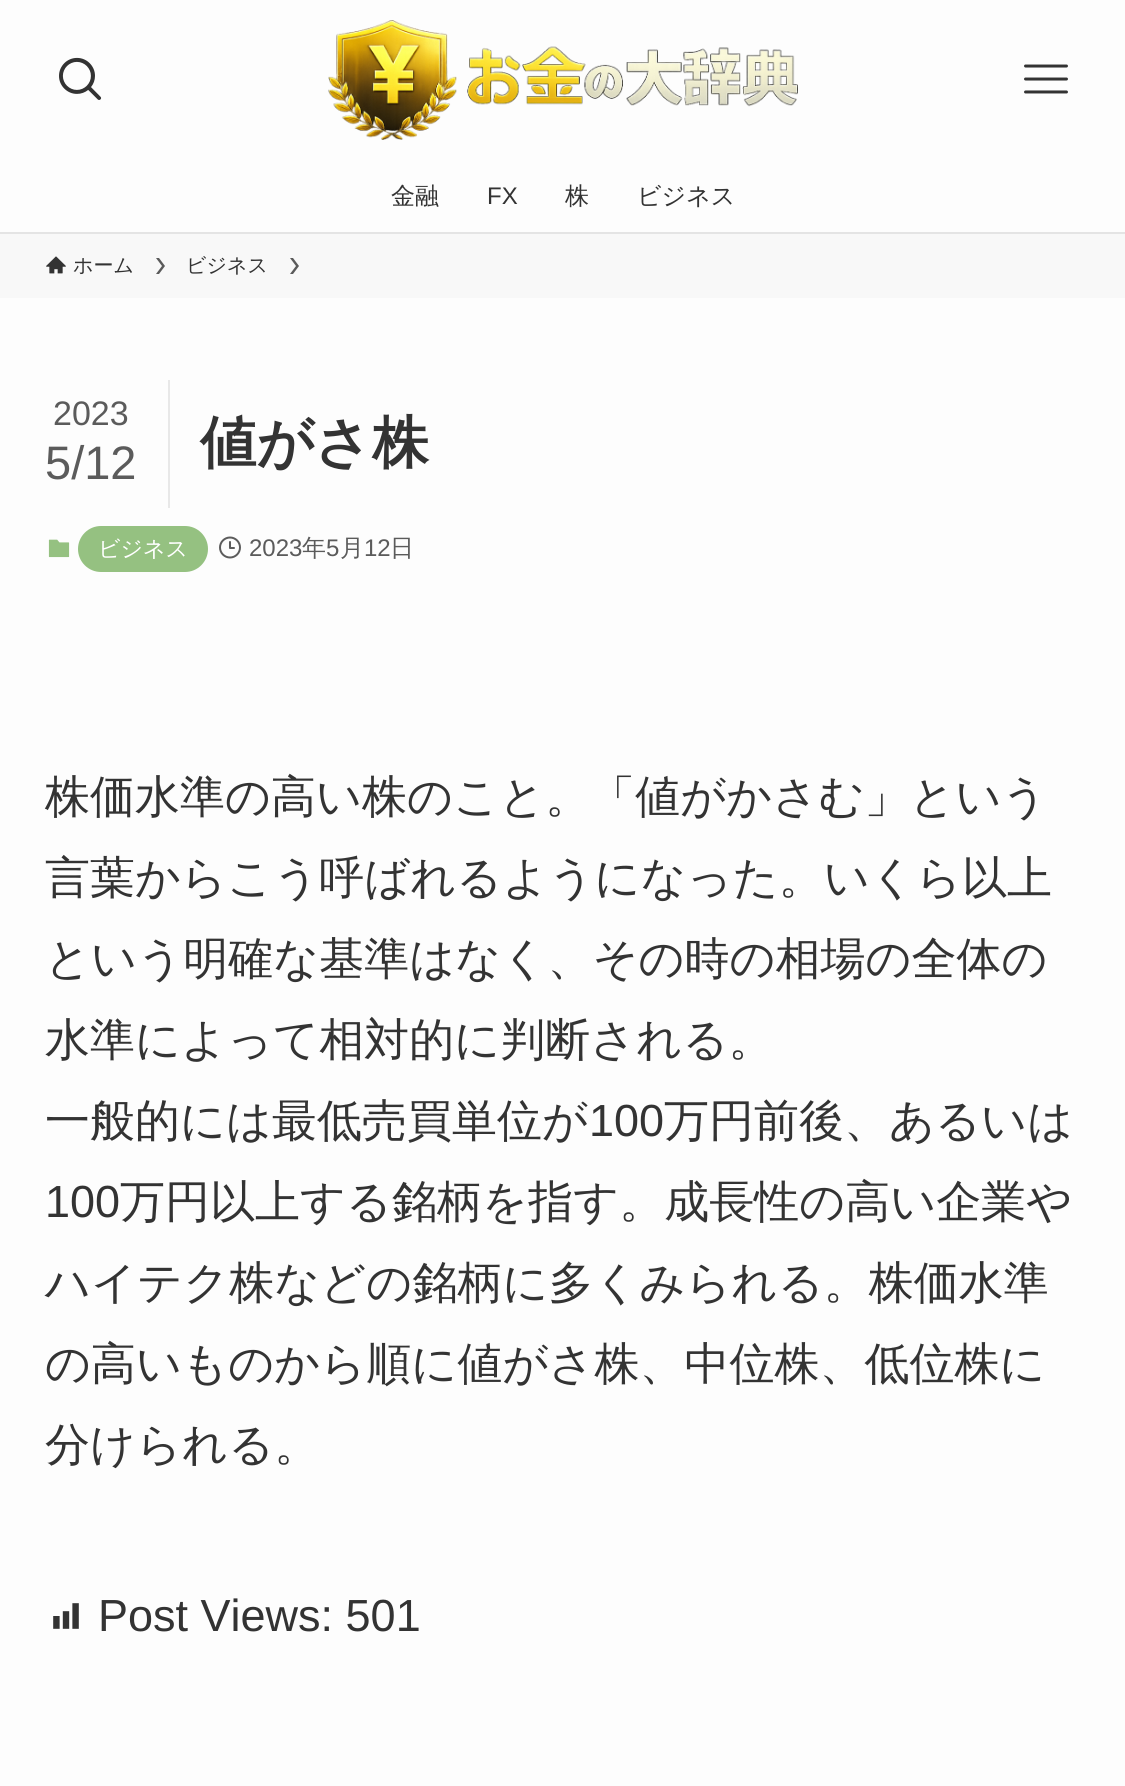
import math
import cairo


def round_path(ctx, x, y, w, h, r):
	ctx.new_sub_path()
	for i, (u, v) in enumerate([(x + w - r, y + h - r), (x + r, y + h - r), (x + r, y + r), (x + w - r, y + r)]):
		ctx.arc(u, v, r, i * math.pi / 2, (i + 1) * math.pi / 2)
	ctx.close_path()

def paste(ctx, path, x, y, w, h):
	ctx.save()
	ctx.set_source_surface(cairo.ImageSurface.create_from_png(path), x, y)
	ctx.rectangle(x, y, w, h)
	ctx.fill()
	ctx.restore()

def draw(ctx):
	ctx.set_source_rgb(0.992, 0.992, 0.992)
	ctx.paint()
	ctx.set_source_rgb(0.894, 0.894, 0.894)
	ctx.rectangle(0, 232, 1125, 2)
	ctx.fill()
	paste(ctx, 'media/1.png', 59, 57, 43, 43)
	paste(ctx, 'media/2.png', 328, 20, 470, 120)
	paste(ctx, 'media/3.png', 1024, 64, 44, 30)
	ctx.select_font_face('WenQuanYi Zen Hei Medium')
	ctx.set_font_size(24)
	ctx.set_source_rgb(0.2, 0.2, 0.2)
	ctx.move_to(391, 204)
	ctx.show_text('金融')
	ctx.select_font_face('Liberation Sans')
	ctx.move_to(487, 204)
	ctx.show_text('FX')
	ctx.select_font_face('WenQuanYi Zen Hei Medium')
	ctx.move_to(565, 204)
	ctx.show_text('株')
	ctx.move_to(637, 204)
	ctx.show_text('ビジネス')
	ctx.set_source_rgb(0.969, 0.969, 0.969)
	ctx.rectangle(0, 234, 1125, 64)
	ctx.fill()
	paste(ctx, 'media/4.png', 46, 256, 20, 18)
	ctx.set_font_size(20)
	ctx.set_source_rgb(0.2, 0.2, 0.2)
	ctx.move_to(73, 272)
	ctx.show_text('ホーム')
	ctx.set_source_rgb(0.353, 0.353, 0.353)
	ctx.new_path()
	ctx.move_to(159, 258)
	ctx.line_to(156, 258)
	ctx.line_to(162, 266)
	ctx.line_to(156, 274)
	ctx.line_to(159, 274)
	ctx.line_to(165, 266)
	ctx.close_path()
	ctx.fill()
	ctx.set_source_rgb(0.2, 0.2, 0.2)
	ctx.move_to(186, 272)
	ctx.show_text('ビジネス')
	ctx.set_source_rgb(0.353, 0.353, 0.353)
	ctx.new_path()
	ctx.move_to(293, 258)
	ctx.line_to(290, 258)
	ctx.line_to(296, 266)
	ctx.line_to(290, 274)
	ctx.line_to(293, 274)
	ctx.line_to(299, 266)
	ctx.close_path()
	ctx.fill()
	ctx.set_source_rgb(0.91, 0.91, 0.91)
	ctx.rectangle(168, 380, 2, 128)
	ctx.fill()
	ctx.select_font_face('Liberation Sans')
	ctx.set_font_size(34)
	ctx.set_source_rgb(0.357, 0.357, 0.357)
	ctx.move_to(53, 425)
	ctx.show_text('2023')
	ctx.set_font_size(47)
	ctx.move_to(45, 479)
	ctx.show_text('5/12')
	ctx.select_font_face('WenQuanYi Zen Hei', cairo.FONT_SLANT_NORMAL, cairo.FONT_WEIGHT_BOLD)
	ctx.set_font_size(56.5)
	ctx.set_source_rgb(0.2, 0.2, 0.2)
	ctx.move_to(200, 462)
	ctx.show_text('値がさ株')
	paste(ctx, 'media/5.png', 48, 539, 22, 19)
	ctx.set_source_rgb(0.584, 0.757, 0.506)
	round_path(ctx, 78, 526, 130, 46, 23)
	ctx.fill()
	ctx.select_font_face('WenQuanYi Zen Hei Medium')
	ctx.set_font_size(22)
	ctx.set_source_rgb(1, 1, 1)
	ctx.move_to(98, 556)
	ctx.show_text('ビジネス')
	paste(ctx, 'media/6.png', 219, 536, 22, 23)
	ctx.select_font_face('Liberation Sans')
	ctx.set_font_size(24)
	ctx.set_source_rgb(0.357, 0.357, 0.357)
	ctx.move_to(249, 556)
	ctx.show_text('2023')
	ctx.select_font_face('WenQuanYi Zen Hei Medium')
	ctx.move_to(302, 556)
	ctx.show_text('年')
	ctx.select_font_face('Liberation Sans')
	ctx.move_to(326, 556)
	ctx.show_text('5')
	ctx.select_font_face('WenQuanYi Zen Hei Medium')
	ctx.move_to(340, 556)
	ctx.show_text('月')
	ctx.select_font_face('Liberation Sans')
	ctx.move_to(364, 556)
	ctx.show_text('12')
	ctx.select_font_face('WenQuanYi Zen Hei Medium')
	ctx.move_to(390, 556)
	ctx.show_text('日')
	ctx.set_font_size(45)
	ctx.set_source_rgb(0.2, 0.2, 0.2)
	for x, y, s in [
		(45, 812, '株価水準の高い株のこと。「値がかさむ」という'),
		(45, 893, '言葉からこう呼ばれるようになった。いくら以上'),
		(45, 974, 'という明確な基準はなく、その時の相場の全体の'),
		(45, 1055, '水準によって相対的に判断される。'),
		(45, 1136, '一般的には最低売買単位が'),
	]:
		ctx.move_to(x, y)
		ctx.show_text(s)
	ctx.select_font_face('Liberation Sans')
	ctx.move_to(589, 1136)
	ctx.show_text('100')
	ctx.select_font_face('WenQuanYi Zen Hei Medium')
	ctx.move_to(664, 1136)
	ctx.show_text('万円前後、あるいは')
	ctx.select_font_face('Liberation Sans')
	ctx.move_to(45, 1217)
	ctx.show_text('100')
	ctx.select_font_face('WenQuanYi Zen Hei Medium')
	for x, y, s in [
		(120, 1217, '万円以上する銘柄を指す。成長性の高い企業や'),
		(45, 1298, 'ハイテク株などの銘柄に多くみられる。株価水準'),
		(45, 1379, 'の高いものから順に値がさ株、中位株、低位株に'),
		(45, 1460, '分けられる。'),
	]:
		ctx.move_to(x, y)
		ctx.show_text(s)
	paste(ctx, 'media/7.png', 53, 1603, 26, 26)
	ctx.select_font_face('Liberation Sans')
	ctx.move_to(98, 1631)
	ctx.show_text('Post Views: 501')


surface = cairo.ImageSurface(cairo.FORMAT_RGB24, 1125, 1786)
ctx = cairo.Context(surface)
options = cairo.FontOptions()
options.set_hint_metrics(cairo.HINT_METRICS_OFF)
options.set_hint_style(cairo.HINT_STYLE_NONE)
ctx.set_font_options(options)
ctx.set_miter_limit(4)
draw(ctx)
surface.write_to_png('image.png')
